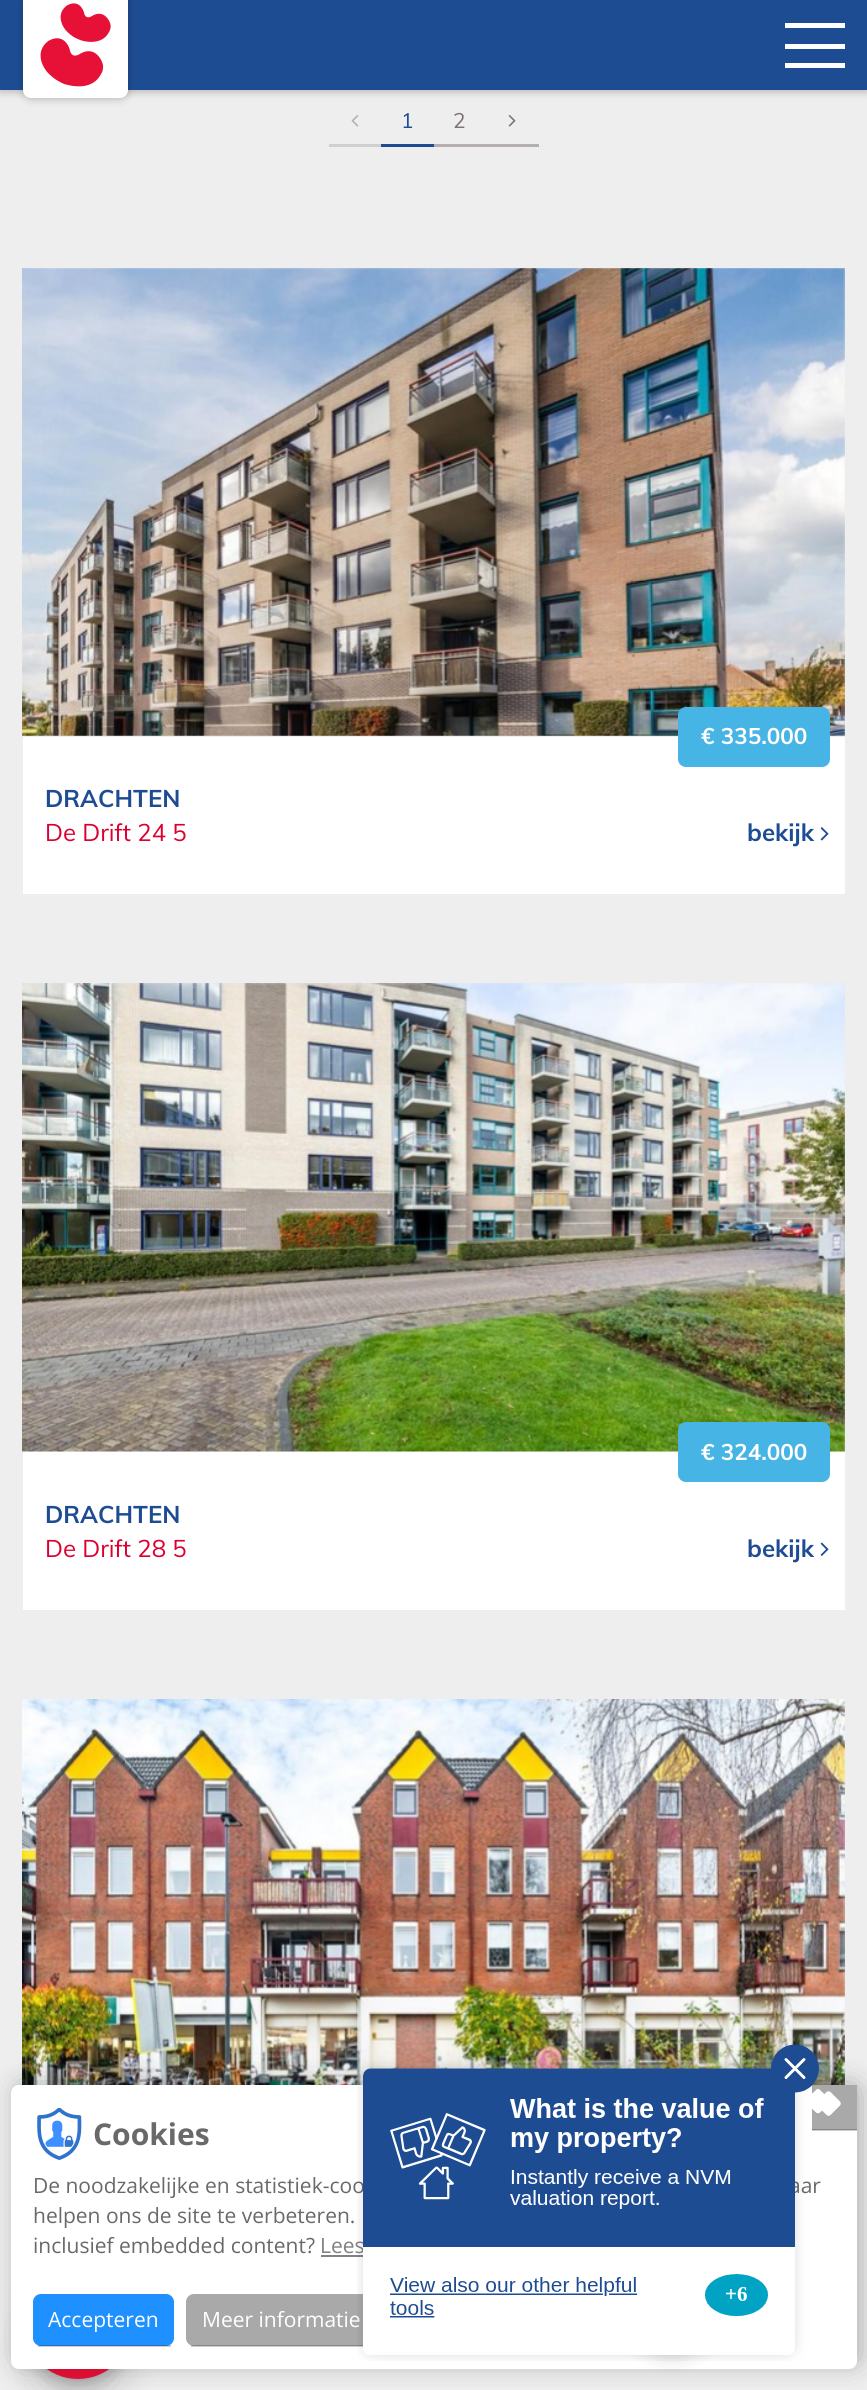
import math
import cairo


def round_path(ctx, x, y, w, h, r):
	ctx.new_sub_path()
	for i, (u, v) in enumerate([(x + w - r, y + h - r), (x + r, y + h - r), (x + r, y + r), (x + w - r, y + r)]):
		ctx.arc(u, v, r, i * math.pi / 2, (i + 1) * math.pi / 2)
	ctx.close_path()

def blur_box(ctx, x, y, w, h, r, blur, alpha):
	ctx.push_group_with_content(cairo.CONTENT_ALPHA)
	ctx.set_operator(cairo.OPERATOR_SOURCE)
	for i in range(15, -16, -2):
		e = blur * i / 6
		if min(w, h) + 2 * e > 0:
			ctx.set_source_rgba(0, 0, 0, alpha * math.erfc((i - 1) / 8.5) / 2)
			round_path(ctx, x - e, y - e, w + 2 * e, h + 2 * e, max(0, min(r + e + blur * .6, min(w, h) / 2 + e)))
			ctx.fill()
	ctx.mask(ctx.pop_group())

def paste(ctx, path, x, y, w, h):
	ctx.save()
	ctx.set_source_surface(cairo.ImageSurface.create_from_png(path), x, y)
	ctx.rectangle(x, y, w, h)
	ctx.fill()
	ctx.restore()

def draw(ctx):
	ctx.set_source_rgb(0.933, 0.933, 0.933)
	ctx.paint()
	ctx.set_source_rgb(0, 0, 0)
	blur_box(ctx, 0, 2, 867, 90, 0, 4.5, 0.12)
	blur_box(ctx, 0, 2, 867, 90, 0, 4.5, 0.12)
	ctx.set_source_rgb(0.118, 0.298, 0.573)
	ctx.rectangle(0, 0, 867, 90)
	ctx.fill()
	ctx.set_source_rgb(0, 0, 0)
	blur_box(ctx, 23, -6, 105, 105, 8, 4.5, 0.12)
	blur_box(ctx, 23, -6, 105, 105, 8, 4.5, 0.12)
	ctx.set_source_rgb(1, 1, 1)
	ctx.new_path()
	ctx.move_to(23, -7)
	ctx.line_to(128, -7)
	ctx.line_to(128, 90)
	ctx.curve_to(128, 94.5, 124.5, 98, 120, 98)
	ctx.line_to(31, 98)
	ctx.curve_to(26.5, 98, 23, 94.5, 23, 90)
	ctx.close_path()
	ctx.fill()
	paste(ctx, 'media/1.png', 40, 3, 71, 84)
	ctx.rectangle(785, 23, 60, 5)
	ctx.rectangle(785, 44, 60, 5)
	ctx.rectangle(785, 63, 60, 5)
	ctx.fill()
	ctx.set_source_rgb(0.824, 0.812, 0.812)
	ctx.rectangle(329, 144, 52, 3)
	ctx.fill()
	paste(ctx, 'media/2.png', 351, 115, 8, 12)
	ctx.set_source_rgb(0.118, 0.298, 0.573)
	ctx.rectangle(381, 144, 53, 3)
	ctx.fill()
	ctx.select_font_face('Muli')
	ctx.set_font_size(21)
	ctx.move_to(401, 128)
	ctx.show_text('1')
	ctx.set_source_rgb(0.71, 0.686, 0.686)
	ctx.rectangle(434, 144, 105, 3)
	ctx.fill()
	ctx.set_source_rgb(0.49, 0.447, 0.451)
	ctx.move_to(453, 128)
	ctx.show_text('2')
	paste(ctx, 'media/3.png', 508, 115, 8, 12)
	paste(ctx, 'media/4.png', 22, 268, 823, 468)
	ctx.set_source_rgb(1, 1, 1)
	ctx.rectangle(23, 737, 822, 157)
	ctx.fill()
	ctx.set_source_rgb(0.275, 0.706, 0.898)
	round_path(ctx, 678, 707, 152, 60, 8)
	ctx.fill()
	ctx.select_font_face('Muli', cairo.FONT_SLANT_NORMAL, cairo.FONT_WEIGHT_BOLD)
	ctx.set_font_size(22.5)
	ctx.set_source_rgb(1, 1, 1)
	ctx.move_to(701, 744)
	ctx.show_text('€ 335.000')
	ctx.set_font_size(24)
	ctx.set_source_rgb(0.118, 0.298, 0.573)
	ctx.move_to(45, 807)
	ctx.show_text('DRACHTEN')
	ctx.select_font_face('Muli')
	ctx.set_source_rgb(0.863, 0, 0.188)
	ctx.move_to(45, 841)
	ctx.show_text('De Drift 24 5')
	ctx.select_font_face('Muli', cairo.FONT_SLANT_NORMAL, cairo.FONT_WEIGHT_BOLD)
	ctx.set_source_rgb(0.118, 0.298, 0.573)
	ctx.move_to(747, 841)
	ctx.show_text('bekijk')
	paste(ctx, 'media/5.png', 820, 827, 9, 14)
	paste(ctx, 'media/6.png', 22, 983, 823, 469)
	ctx.set_source_rgb(1, 1, 1)
	ctx.rectangle(23, 1452, 822, 158)
	ctx.fill()
	ctx.set_source_rgb(0.275, 0.706, 0.898)
	round_path(ctx, 678, 1422, 152, 60, 8)
	ctx.fill()
	ctx.set_font_size(22.5)
	ctx.set_source_rgb(1, 1, 1)
	ctx.move_to(701, 1460)
	ctx.show_text('€ 324.000')
	ctx.set_font_size(24)
	ctx.set_source_rgb(0.118, 0.298, 0.573)
	ctx.move_to(45, 1523)
	ctx.show_text('DRACHTEN')
	ctx.select_font_face('Muli')
	ctx.set_source_rgb(0.863, 0, 0.188)
	ctx.move_to(45, 1557)
	ctx.show_text('De Drift 28 5')
	ctx.select_font_face('Muli', cairo.FONT_SLANT_NORMAL, cairo.FONT_WEIGHT_BOLD)
	ctx.set_source_rgb(0.118, 0.298, 0.573)
	ctx.move_to(747, 1557)
	ctx.show_text('bekijk')
	paste(ctx, 'media/7.png', 820, 1542, 9, 14)
	paste(ctx, 'media/8.png', 22, 1699, 823, 386)
	ctx.set_source_rgb(0, 0, 0)
	blur_box(ctx, 33, 2292, 90, 90, 45, 7.5, 0.1)
	blur_box(ctx, 32, 2309, 93, 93, 46.5, 19, 0.1)
	blur_box(ctx, 29, 2282, 99, 99, 49.5, 7.5, 0.1)
	blur_box(ctx, 32, 2291, 93, 93, 46.5, 19, 0.15)
	ctx.set_source_rgb(0.906, 0.063, 0.216)
	ctx.arc(78, 2325, 54, 0, 2 * math.pi)
	ctx.fill()
	ctx.set_source_rgb(0, 0, 0)
	blur_box(ctx, 20, 2087, 837, 274, 3, 14, 0.33)
	ctx.set_source_rgb(1, 1, 1)
	round_path(ctx, 11, 2085, 846, 284, 8)
	ctx.fill()
	ctx.set_source_rgb(0.663, 0.663, 0.663)
	ctx.rectangle(812, 2085, 45, 45)
	ctx.fill()
	ctx.set_source_rgba(0, 0, 0, 0.2)
	ctx.rectangle(812, 2129, 45, 2)
	ctx.fill()
	ctx.set_source_rgb(1, 1, 1)
	ctx.new_path()
	ctx.move_to(817, 2101.5)
	ctx.line_to(826.5, 2092)
	ctx.curve_to(827.5, 2091, 829.5, 2091, 830.5, 2092)
	ctx.line_to(840, 2101.5)
	ctx.curve_to(841, 2102.5, 841, 2104.5, 840, 2105.5)
	ctx.line_to(830.5, 2115)
	ctx.curve_to(829.5, 2116, 827.5, 2116, 826.5, 2115)
	ctx.line_to(817, 2105.5)
	ctx.curve_to(816, 2104.5, 816, 2102.5, 817, 2101.5)
	ctx.close_path()
	ctx.fill()
	ctx.new_path()
	ctx.move_to(820, 2090)
	ctx.line_to(829.5, 2099)
	ctx.curve_to(830.5, 2100, 830.5, 2102, 829.5, 2103.5)
	ctx.line_to(820, 2112.5)
	ctx.curve_to(819, 2113.5, 817, 2113.5, 816, 2112.5)
	ctx.line_to(806.5, 2103.5)
	ctx.curve_to(805.5, 2102, 805.5, 2100, 806.5, 2099)
	ctx.line_to(816, 2090)
	ctx.curve_to(817, 2088.5, 819, 2088.5, 820, 2090)
	ctx.close_path()
	ctx.fill()
	ctx.select_font_face('Open Sans')
	ctx.set_font_size(21)
	ctx.set_source_rgb(0.412, 0.412, 0.412)
	ctx.move_to(33, 2193)
	ctx.show_text('De noodzakelijke en statistiek-coo')
	ctx.move_to(789, 2193)
	ctx.show_text('aar')
	ctx.set_source_rgb(0.502, 0.502, 0.502)
	ctx.move_to(320, 2253)
	ctx.show_text('Lees')
	ctx.rectangle(321, 2255, 42, 2)
	ctx.fill()
	ctx.set_source_rgb(0.663, 0.663, 0.663)
	round_path(ctx, 186, 2294, 189, 52, 8)
	ctx.fill()
	ctx.set_source_rgba(0, 0, 0, 0.2)
	ctx.rectangle(191, 2345, 172, 2)
	ctx.fill()
	ctx.set_source_rgb(1, 1, 1)
	ctx.move_to(202, 2327)
	ctx.show_text('Meer informatie')
	ctx.set_source_rgb(0, 0, 0)
	blur_box(ctx, 627, 2268, 90, 90, 45, 9, 0.15)
	paste(ctx, 'media/9.png', 357, 2044, 462, 317)
	paste(ctx, 'media/10.png', 37, 2108, 45, 52)
	ctx.select_font_face('Open Sans', cairo.FONT_SLANT_NORMAL, cairo.FONT_WEIGHT_BOLD)
	ctx.set_font_size(30)
	ctx.set_source_rgb(0.412, 0.412, 0.412)
	ctx.move_to(93, 2145)
	ctx.show_text('Cookies')
	ctx.select_font_face('Open Sans')
	ctx.set_font_size(21)
	ctx.move_to(33, 2223)
	ctx.show_text('helpen ons de site te verbeteren.')
	ctx.move_to(33, 2253)
	ctx.show_text('inclusief embedded content?')
	ctx.set_source_rgb(0.118, 0.565, 1)
	round_path(ctx, 33, 2294, 141, 52, 8)
	ctx.fill()
	ctx.set_source_rgba(0, 0, 0, 0.2)
	ctx.rectangle(38, 2345, 133, 2)
	ctx.fill()
	ctx.set_source_rgb(1, 1, 1)
	ctx.move_to(48, 2327)
	ctx.show_text('Accepteren')


surface = cairo.ImageSurface(cairo.FORMAT_RGB24, 867, 2390)
ctx = cairo.Context(surface)
options = cairo.FontOptions()
options.set_hint_metrics(cairo.HINT_METRICS_OFF)
options.set_hint_style(cairo.HINT_STYLE_NONE)
ctx.set_font_options(options)
ctx.set_miter_limit(4)
draw(ctx)
surface.write_to_png('image.png')
